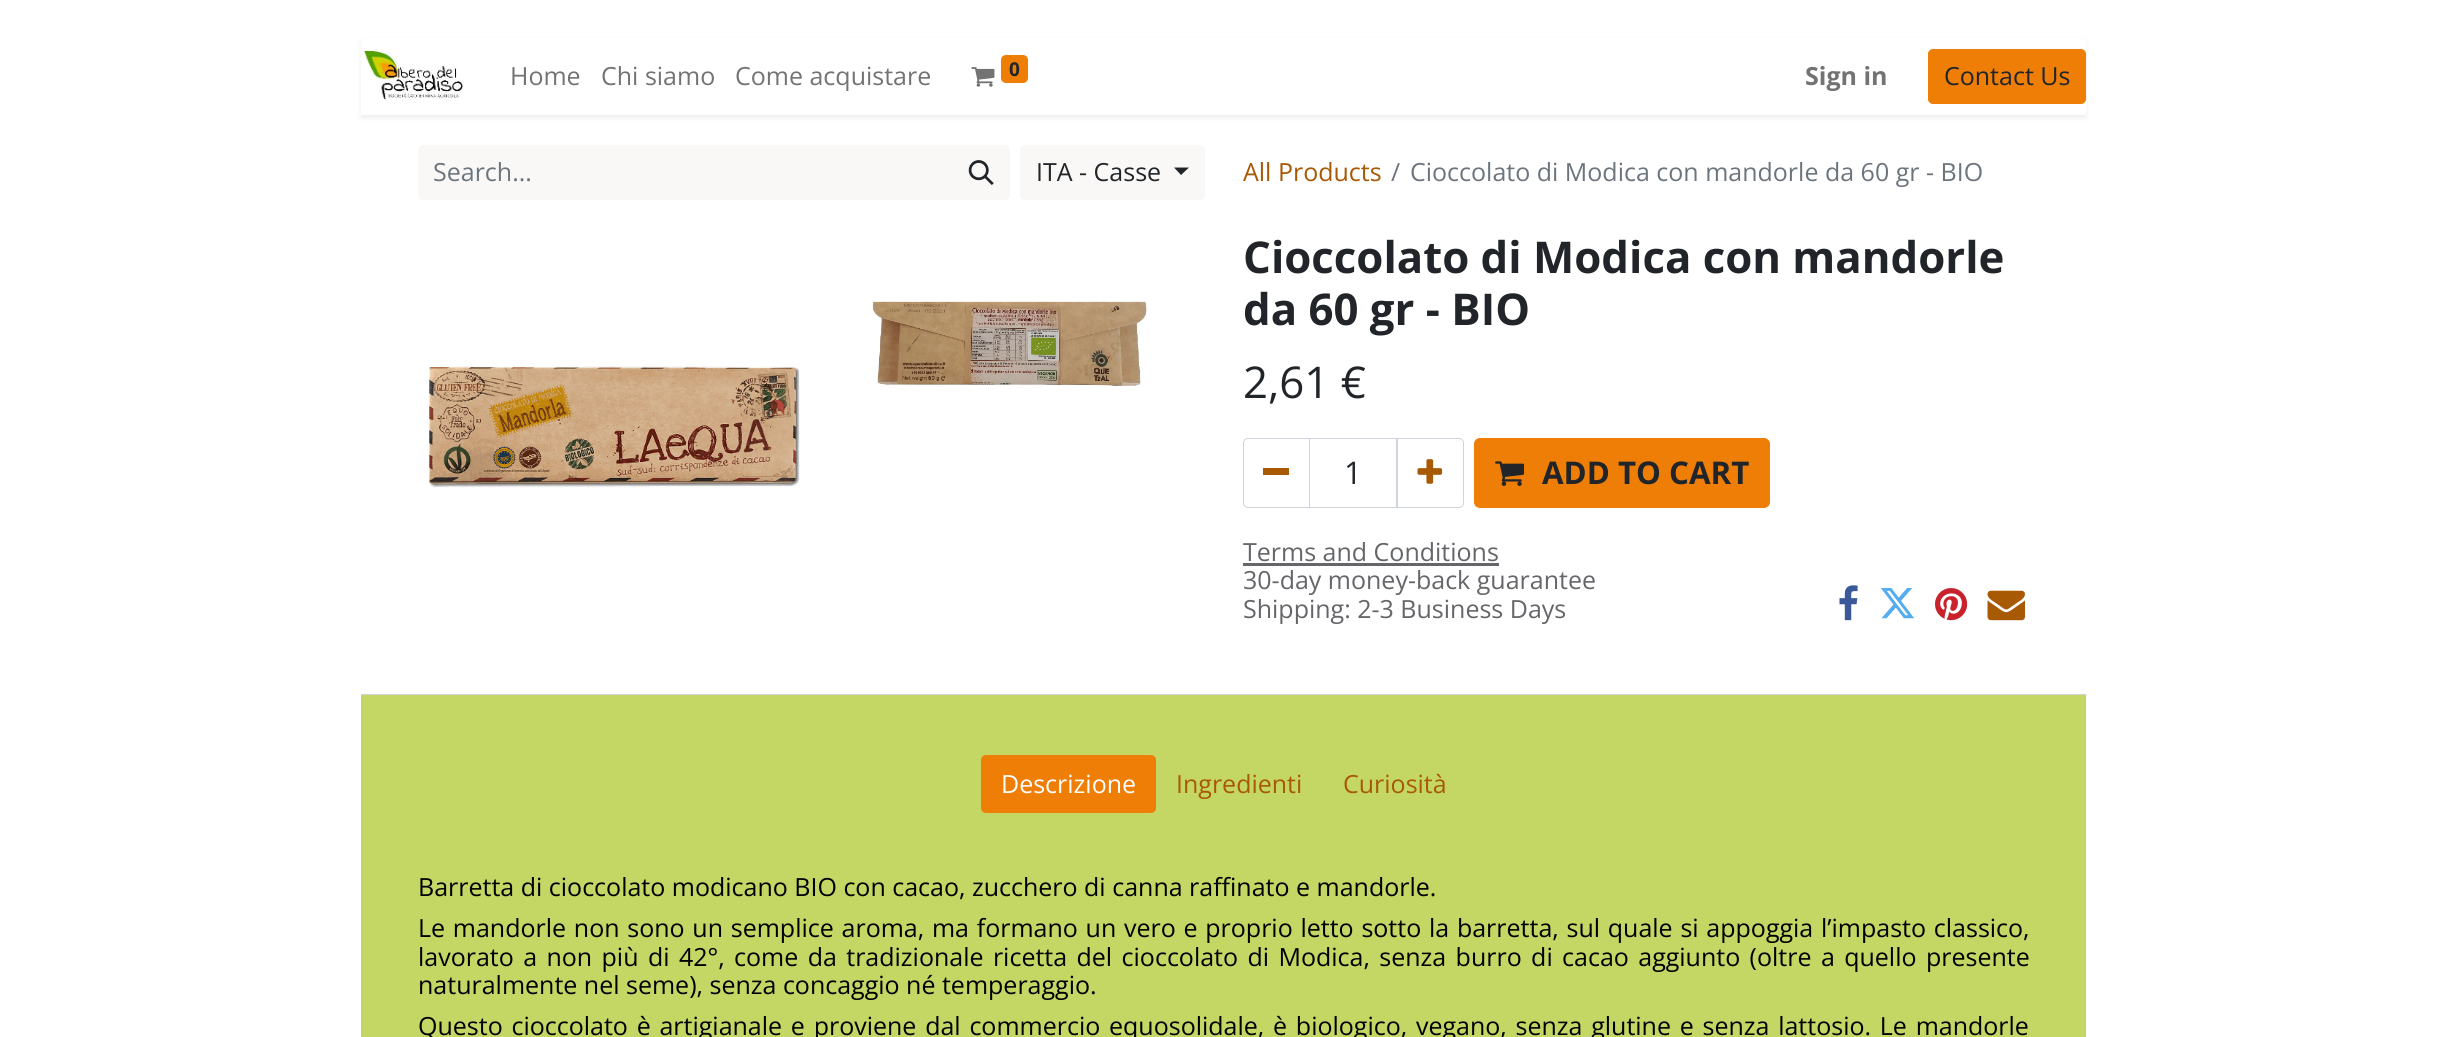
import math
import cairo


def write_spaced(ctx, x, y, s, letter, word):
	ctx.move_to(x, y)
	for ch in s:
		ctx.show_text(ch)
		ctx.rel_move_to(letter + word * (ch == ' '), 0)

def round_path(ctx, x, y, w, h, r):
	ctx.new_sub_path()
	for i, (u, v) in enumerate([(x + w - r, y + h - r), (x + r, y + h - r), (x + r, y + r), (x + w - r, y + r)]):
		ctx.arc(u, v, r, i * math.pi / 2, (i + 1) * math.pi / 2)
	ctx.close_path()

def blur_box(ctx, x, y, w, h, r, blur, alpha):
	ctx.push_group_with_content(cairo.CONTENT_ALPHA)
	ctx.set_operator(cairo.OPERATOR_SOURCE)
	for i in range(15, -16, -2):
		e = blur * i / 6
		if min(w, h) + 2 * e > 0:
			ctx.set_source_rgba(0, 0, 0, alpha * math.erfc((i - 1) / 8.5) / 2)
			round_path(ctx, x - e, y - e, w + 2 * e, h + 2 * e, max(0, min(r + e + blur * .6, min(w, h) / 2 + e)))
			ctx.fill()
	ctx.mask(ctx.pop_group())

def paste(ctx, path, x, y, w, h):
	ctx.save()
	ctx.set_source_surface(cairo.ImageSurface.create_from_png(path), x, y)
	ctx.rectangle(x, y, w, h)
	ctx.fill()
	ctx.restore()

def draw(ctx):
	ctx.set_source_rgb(1, 1, 1)
	ctx.paint()
	ctx.set_source_rgb(0, 0, 0)
	blur_box(ctx, 361, 40, 1725, 78, 0, 2.5, 0.07)
	ctx.set_source_rgb(1, 1, 1)
	ctx.rectangle(361, 38, 1725, 77)
	ctx.fill()
	paste(ctx, 'media/1.png', 361, 47, 103, 53)
	ctx.select_font_face('Open Sans')
	ctx.set_font_size(25)
	ctx.set_source_rgb(0.451, 0.451, 0.451)
	for x, y, s in [
		(510, 85, 'Home'),
		(601, 85, 'Chi siamo'),
		(735, 85, 'Come acquistare'),
	]:
		ctx.move_to(x, y)
		ctx.show_text(s)
	paste(ctx, 'media/2.png', 971, 67, 24, 20)
	ctx.set_source_rgb(0.933, 0.494, 0.024)
	round_path(ctx, 1001, 55, 27, 28, 5)
	ctx.fill()
	ctx.select_font_face('Open Sans', cairo.FONT_SLANT_NORMAL, cairo.FONT_WEIGHT_BOLD)
	ctx.set_font_size(19)
	ctx.set_source_rgb(0.129, 0.145, 0.161)
	ctx.move_to(1009, 76)
	ctx.show_text('0')
	ctx.set_font_size(25)
	ctx.set_source_rgb(0.451, 0.451, 0.451)
	ctx.move_to(1805, 85)
	ctx.show_text('Sign in')
	ctx.set_source_rgb(0.933, 0.494, 0.024)
	round_path(ctx, 1928.5, 49.5, 157, 54, 4.5)
	ctx.fill_preserve()
	ctx.set_line_width(1)
	ctx.stroke()
	ctx.select_font_face('Open Sans')
	ctx.set_source_rgb(0.129, 0.145, 0.161)
	ctx.move_to(1944, 85)
	ctx.show_text('Contact Us')
	ctx.set_source_rgb(0.976, 0.969, 0.965)
	ctx.new_path()
	ctx.move_to(423, 145)
	ctx.line_to(954, 145)
	ctx.line_to(954, 200)
	ctx.line_to(423, 200)
	ctx.curve_to(420, 200, 418, 198, 418, 195)
	ctx.line_to(418, 150)
	ctx.curve_to(418, 147, 420, 145, 423, 145)
	ctx.close_path()
	ctx.fill()
	ctx.set_source_rgb(0.424, 0.459, 0.49)
	ctx.move_to(433, 181)
	ctx.show_text('Search...')
	ctx.set_source_rgb(0.976, 0.969, 0.965)
	ctx.new_path()
	ctx.move_to(953, 145)
	ctx.line_to(1005, 145)
	ctx.curve_to(1008, 145, 1010, 147, 1010, 150)
	ctx.line_to(1010, 195)
	ctx.curve_to(1010, 198, 1008, 200, 1005, 200)
	ctx.line_to(953, 200)
	ctx.close_path()
	ctx.fill()
	paste(ctx, 'media/3.png', 968, 160, 26, 25)
	round_path(ctx, 1020, 145, 185, 55, 5)
	ctx.fill()
	ctx.set_source_rgb(0.129, 0.145, 0.161)
	ctx.move_to(1036, 181)
	ctx.show_text('ITA - Casse')
	ctx.new_path()
	ctx.move_to(1174, 167.5)
	ctx.line_to(1189, 167.5)
	ctx.line_to(1181, 175)
	ctx.close_path()
	ctx.fill()
	ctx.set_source_rgb(0.659, 0.349, 0.016)
	ctx.move_to(1243, 181)
	ctx.show_text('All Products')
	ctx.set_source_rgb(0.424, 0.459, 0.49)
	ctx.move_to(1391, 181)
	ctx.show_text('/')
	ctx.move_to(1410, 181)
	ctx.show_text('Cioccolato di Modica con mandorle da 60 gr - BIO')
	paste(ctx, 'media/4.png', 872, 301, 275, 85)
	paste(ctx, 'media/5.png', 429, 366, 371, 122)
	ctx.select_font_face('Open Sans', cairo.FONT_SLANT_NORMAL, cairo.FONT_WEIGHT_BOLD)
	ctx.set_font_size(43.75)
	ctx.set_source_rgb(0.129, 0.145, 0.161)
	ctx.move_to(1243, 273)
	ctx.show_text('Cioccolato di Modica con mandorle')
	ctx.move_to(1243, 325)
	ctx.show_text('da 60 gr - BIO')
	ctx.select_font_face('Open Sans')
	ctx.move_to(1243, 398)
	ctx.show_text('2,61 €')
	ctx.rectangle(1309.5, 438.5, 88, 69)
	ctx.set_source_rgb(0.808, 0.831, 0.855)
	ctx.stroke()
	ctx.new_path()
	ctx.move_to(1248, 438.5)
	ctx.line_to(1309.5, 438.5)
	ctx.line_to(1309.5, 507.5)
	ctx.line_to(1248, 507.5)
	ctx.curve_to(1245.5, 507.5, 1243.5, 505.5, 1243.5, 503)
	ctx.line_to(1243.5, 443)
	ctx.curve_to(1243.5, 440.5, 1245.5, 438.5, 1248, 438.5)
	ctx.close_path()
	ctx.stroke()
	ctx.set_source_rgb(0.659, 0.349, 0.016)
	ctx.rectangle(1263, 468, 26, 7)
	ctx.fill()
	ctx.set_font_size(31.25)
	ctx.set_source_rgb(0.129, 0.145, 0.161)
	ctx.move_to(1344, 484)
	ctx.show_text('1')
	ctx.new_path()
	ctx.move_to(1396.5, 438.5)
	ctx.line_to(1459, 438.5)
	ctx.curve_to(1461.5, 438.5, 1463.5, 440.5, 1463.5, 443)
	ctx.line_to(1463.5, 503)
	ctx.curve_to(1463.5, 505.5, 1461.5, 507.5, 1459, 507.5)
	ctx.line_to(1396.5, 507.5)
	ctx.close_path()
	ctx.set_source_rgb(0.808, 0.831, 0.855)
	ctx.stroke()
	paste(ctx, 'media/6.png', 1417, 459, 26, 25)
	ctx.set_source_rgb(0.933, 0.494, 0.024)
	round_path(ctx, 1474.5, 438.5, 295, 69, 5.5)
	ctx.fill_preserve()
	ctx.stroke()
	paste(ctx, 'media/7.png', 1495, 461, 29, 25)
	ctx.select_font_face('Open Sans', cairo.FONT_SLANT_NORMAL, cairo.FONT_WEIGHT_BOLD)
	ctx.set_source_rgb(0.129, 0.145, 0.161)
	ctx.move_to(1542, 484)
	ctx.show_text('ADD TO CART')
	ctx.select_font_face('Open Sans')
	ctx.set_font_size(25)
	ctx.set_source_rgb(0.392, 0.4, 0.412)
	ctx.move_to(1243, 561)
	ctx.show_text('Terms and Conditions')
	ctx.rectangle(1243, 563, 256, 3)
	ctx.fill()
	ctx.move_to(1243, 589)
	ctx.show_text('30-day money-back guarantee')
	ctx.move_to(1243, 618)
	ctx.show_text('Shipping: 2-3 Business Days')
	paste(ctx, 'media/8.png', 1839, 585, 19, 36)
	paste(ctx, 'media/9.png', 1880, 588, 35, 31)
	paste(ctx, 'media/10.png', 1935, 588, 33, 33)
	paste(ctx, 'media/11.png', 1987, 590, 38, 31)
	ctx.set_source_rgb(0.769, 0.843, 0.392)
	ctx.rectangle(361, 695, 1725, 342)
	ctx.fill()
	ctx.set_source_rgb(0.808, 0.831, 0.855)
	ctx.rectangle(361, 694, 1725, 1)
	ctx.fill()
	ctx.set_source_rgb(0.933, 0.494, 0.024)
	round_path(ctx, 981, 755, 175, 58, 5)
	ctx.fill()
	ctx.set_source_rgb(1, 1, 1)
	ctx.move_to(1001, 793)
	ctx.show_text('Descrizione')
	ctx.set_source_rgb(0.659, 0.349, 0.016)
	ctx.move_to(1176, 793)
	ctx.show_text('Ingredienti')
	ctx.move_to(1343, 793)
	ctx.show_text('Curiosità')
	ctx.set_source_rgb(0, 0, 0)
	ctx.move_to(418, 896)
	ctx.show_text('Barretta di cioccolato modicano BIO con cacao, zucchero di canna raffinato e mandorle.')
	write_spaced(ctx, 418, 937, 'Le mandorle non sono un semplice aroma, ma formano un vero e proprio letto sotto la barretta, sul quale si appoggia l’impasto classico,', 0, 1.25)
	write_spaced(ctx, 418, 966, 'lavorato a non più di 42°, come da tradizionale ricetta del cioccolato di Modica, senza burro di cacao aggiunto (oltre a quello presente', 0, 2.9)
	ctx.move_to(418, 994)
	ctx.show_text('naturalmente nel seme), senza concaggio né temperaggio.')
	write_spaced(ctx, 418, 1035, 'Questo cioccolato è artigianale e proviene dal commercio equosolidale, è biologico, vegano, senza glutine e senza lattosio. Le mandorle', 0, 2.25)


surface = cairo.ImageSurface(cairo.FORMAT_RGB24, 2447, 1037)
ctx = cairo.Context(surface)
options = cairo.FontOptions()
options.set_hint_metrics(cairo.HINT_METRICS_OFF)
options.set_hint_style(cairo.HINT_STYLE_NONE)
ctx.set_font_options(options)
ctx.set_miter_limit(4)
draw(ctx)
surface.write_to_png('image.png')
